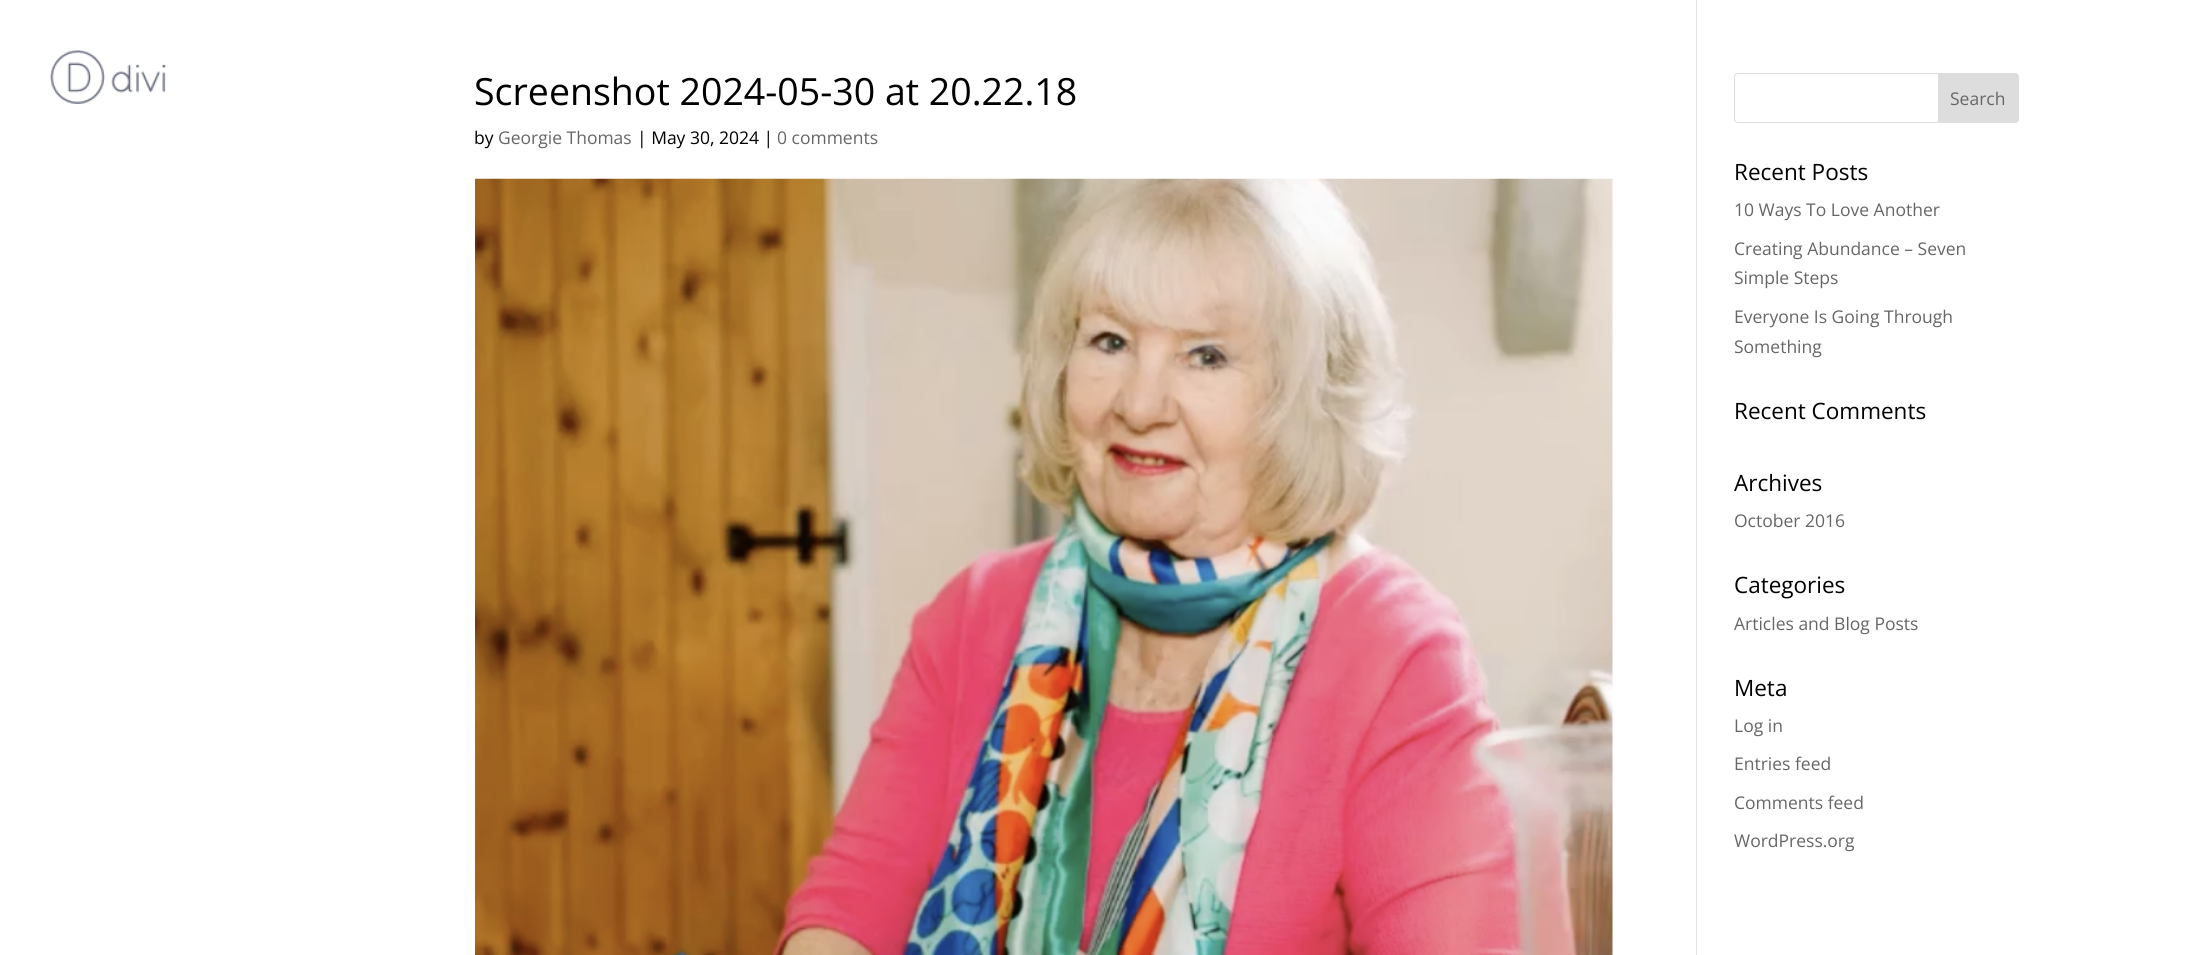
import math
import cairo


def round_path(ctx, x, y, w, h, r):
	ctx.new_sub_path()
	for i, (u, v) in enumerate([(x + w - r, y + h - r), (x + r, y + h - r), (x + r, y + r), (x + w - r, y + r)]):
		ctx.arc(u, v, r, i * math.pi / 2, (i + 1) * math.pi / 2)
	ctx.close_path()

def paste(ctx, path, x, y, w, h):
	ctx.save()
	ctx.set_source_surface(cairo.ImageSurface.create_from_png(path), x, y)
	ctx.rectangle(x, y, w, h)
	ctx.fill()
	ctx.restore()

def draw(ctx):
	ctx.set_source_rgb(1, 1, 1)
	ctx.paint()
	paste(ctx, 'media/1.png', 50, 50, 116, 54)
	ctx.set_source_rgb(0.886, 0.886, 0.886)
	ctx.rectangle(1696, 0, 1, 955)
	ctx.fill()
	ctx.select_font_face('Open Sans')
	ctx.set_font_size(37.5)
	ctx.set_source_rgb(0, 0, 0)
	ctx.move_to(474, 105)
	ctx.show_text('Screenshot 2024-05-30 at 20.22.18')
	ctx.set_font_size(17.5)
	ctx.move_to(474, 144)
	ctx.show_text('by')
	ctx.set_source_rgb(0.4, 0.4, 0.4)
	ctx.move_to(498, 144)
	ctx.show_text('Georgie Thomas')
	ctx.set_source_rgb(0, 0, 0)
	ctx.move_to(637, 144)
	ctx.show_text('| May 30, 2024 |')
	ctx.set_source_rgb(0.4, 0.4, 0.4)
	ctx.move_to(777, 144)
	ctx.show_text('0 comments')
	paste(ctx, 'media/2.png', 475, 178, 1138, 777)
	round_path(ctx, 1734.5, 73.5, 284, 49, 3.5)
	ctx.set_source_rgb(0.867, 0.867, 0.867)
	ctx.set_line_width(1)
	ctx.stroke()
	ctx.new_path()
	ctx.move_to(1938.5, 73.5)
	ctx.line_to(2015, 73.5)
	ctx.curve_to(2017, 73.5, 2018.5, 75, 2018.5, 77)
	ctx.line_to(2018.5, 119)
	ctx.curve_to(2018.5, 121, 2017, 122.5, 2015, 122.5)
	ctx.line_to(1938.5, 122.5)
	ctx.close_path()
	ctx.fill_preserve()
	ctx.stroke()
	ctx.set_source_rgb(0.4, 0.4, 0.4)
	ctx.move_to(1950, 105)
	ctx.show_text('Search')
	ctx.set_font_size(22.5)
	ctx.set_source_rgb(0, 0, 0)
	ctx.move_to(1734, 180)
	ctx.show_text('Recent Posts')
	ctx.set_font_size(17.5)
	ctx.set_source_rgb(0.4, 0.4, 0.4)
	for x, y, s in [
		(1734, 216, '10 Ways To Love Another'),
		(1734, 255, 'Creating Abundance – Seven'),
		(1734, 284, 'Simple Steps'),
		(1734, 323, 'Everyone Is Going Through'),
		(1734, 353, 'Something'),
	]:
		ctx.move_to(x, y)
		ctx.show_text(s)
	ctx.set_font_size(22.5)
	ctx.set_source_rgb(0, 0, 0)
	ctx.move_to(1734, 419)
	ctx.show_text('Recent Comments')
	ctx.move_to(1734, 491)
	ctx.show_text('Archives')
	ctx.set_font_size(17.5)
	ctx.set_source_rgb(0.4, 0.4, 0.4)
	ctx.move_to(1734, 527)
	ctx.show_text('October 2016')
	ctx.set_font_size(22.5)
	ctx.set_source_rgb(0, 0, 0)
	ctx.move_to(1734, 593)
	ctx.show_text('Categories')
	ctx.set_font_size(17.5)
	ctx.set_source_rgb(0.4, 0.4, 0.4)
	ctx.move_to(1734, 630)
	ctx.show_text('Articles and Blog Posts')
	ctx.set_font_size(22.5)
	ctx.set_source_rgb(0, 0, 0)
	ctx.move_to(1734, 696)
	ctx.show_text('Meta')
	ctx.set_font_size(17.5)
	ctx.set_source_rgb(0.4, 0.4, 0.4)
	for x, y, s in [
		(1734, 732, 'Log in'),
		(1734, 770, 'Entries feed'),
		(1734, 809, 'Comments feed'),
		(1734, 847, 'WordPress.org'),
	]:
		ctx.move_to(x, y)
		ctx.show_text(s)


surface = cairo.ImageSurface(cairo.FORMAT_RGB24, 2212, 955)
ctx = cairo.Context(surface)
options = cairo.FontOptions()
options.set_hint_metrics(cairo.HINT_METRICS_OFF)
options.set_hint_style(cairo.HINT_STYLE_NONE)
ctx.set_font_options(options)
ctx.set_miter_limit(4)
draw(ctx)
surface.write_to_png('image.png')
